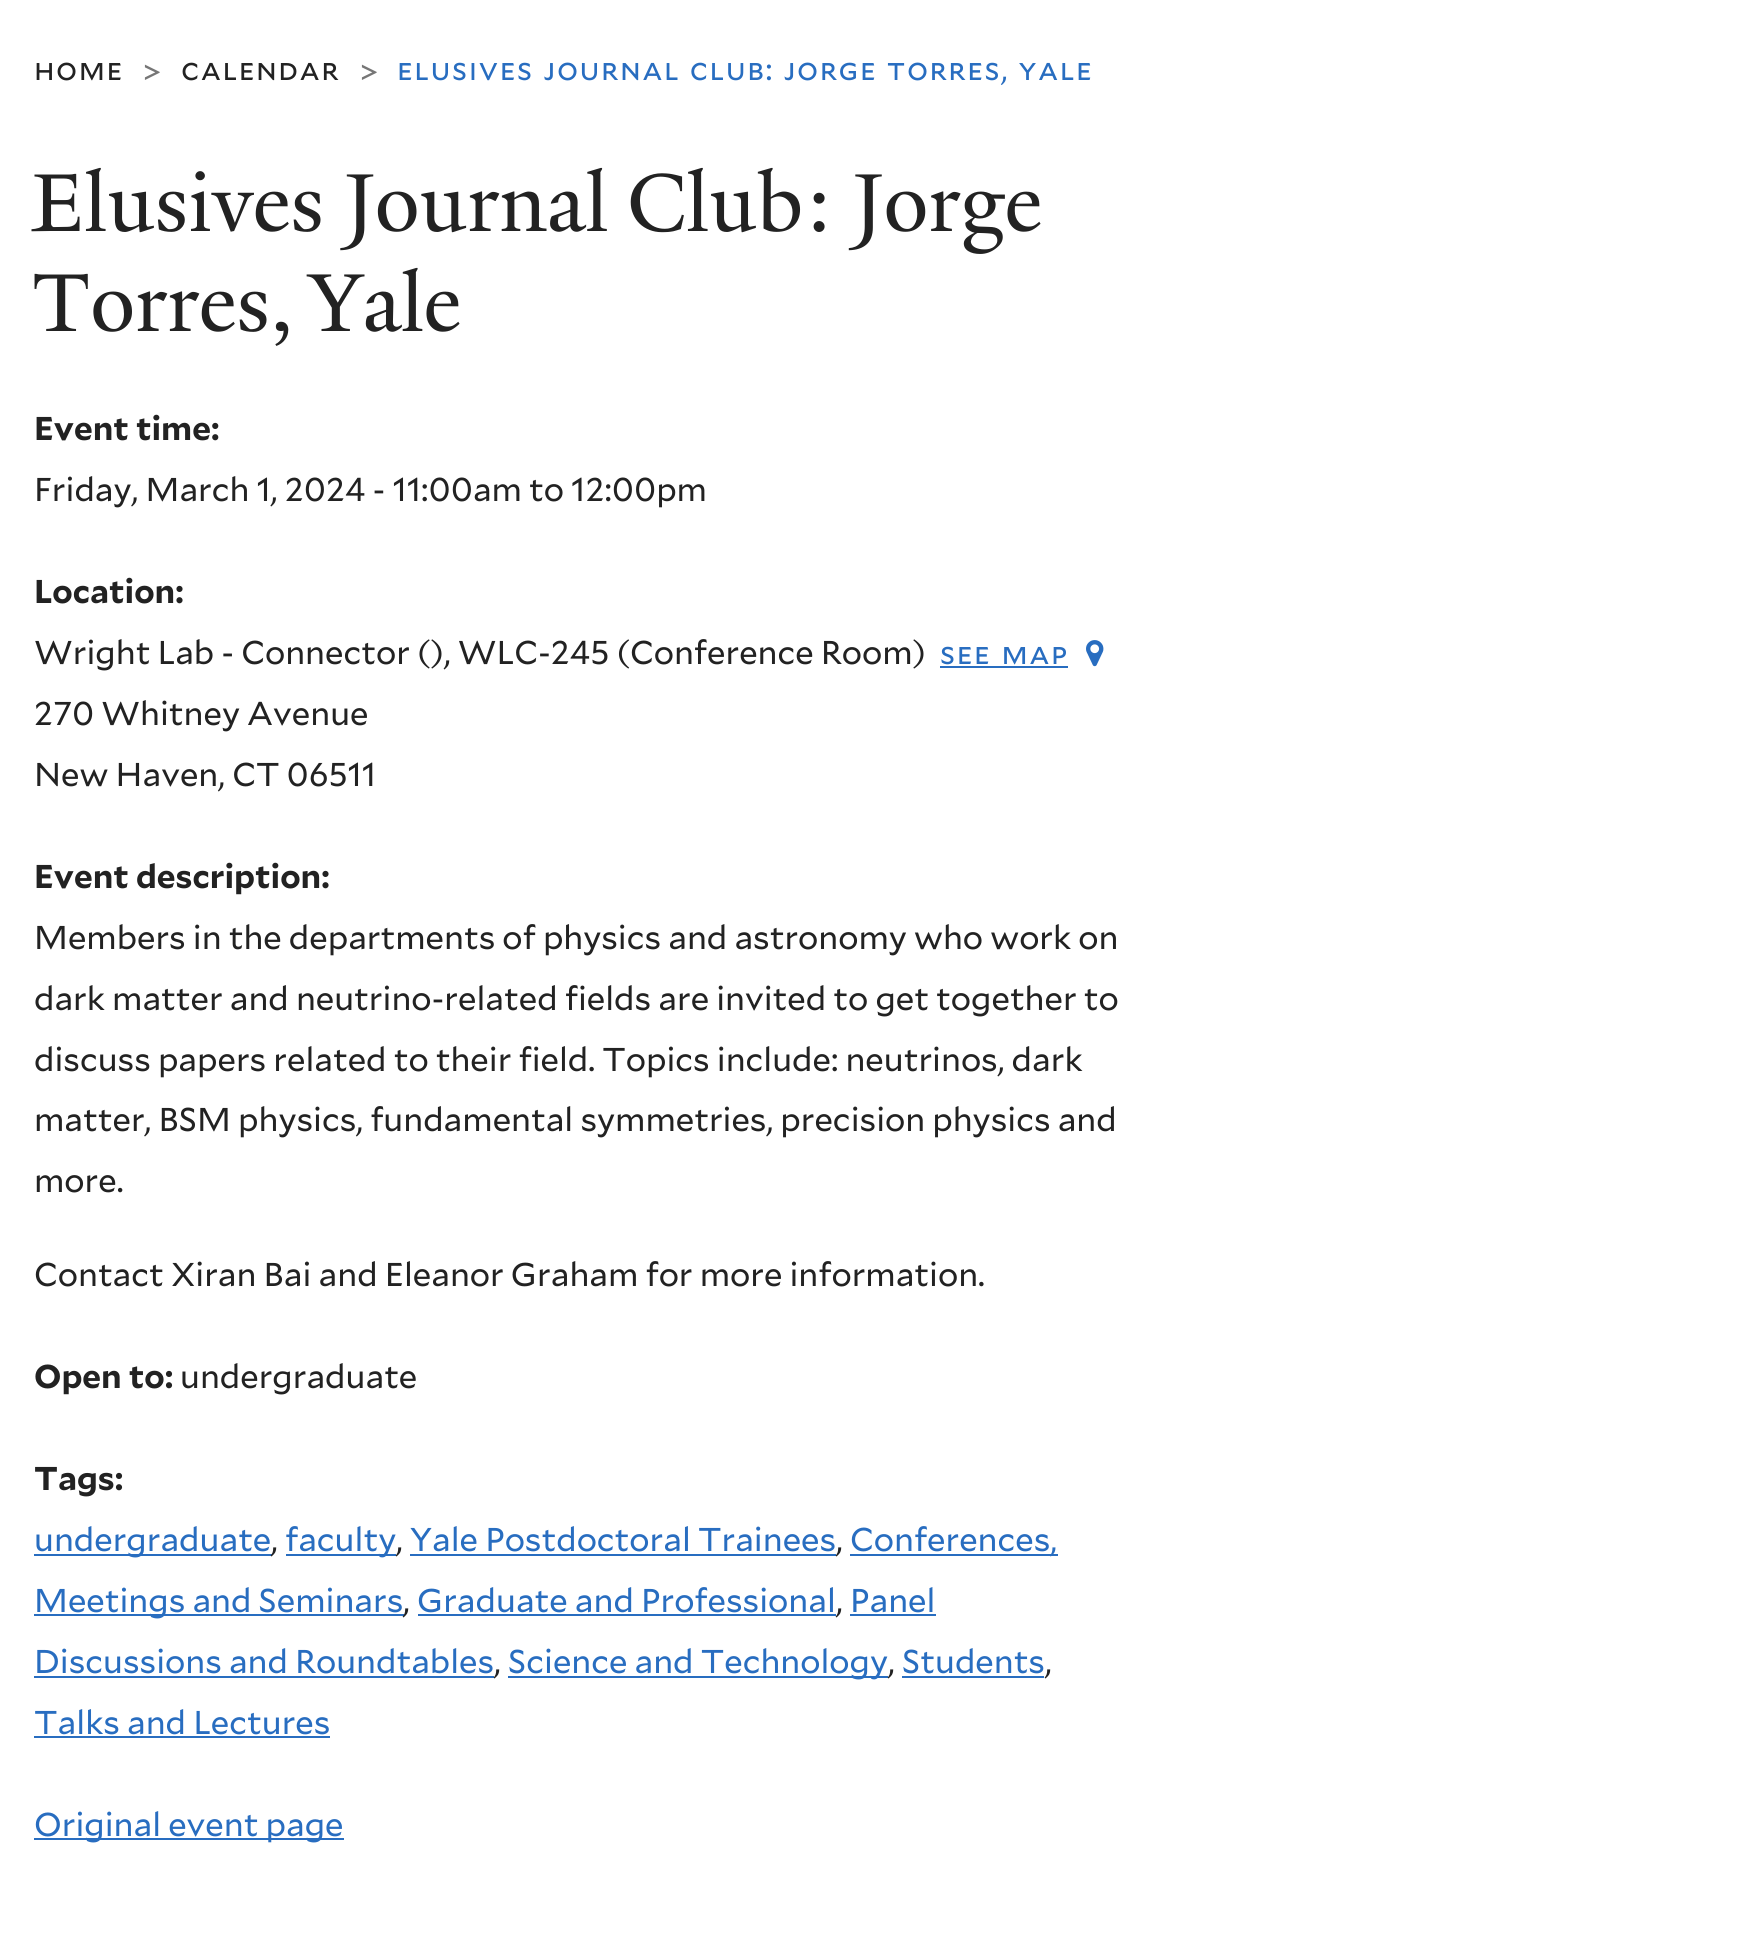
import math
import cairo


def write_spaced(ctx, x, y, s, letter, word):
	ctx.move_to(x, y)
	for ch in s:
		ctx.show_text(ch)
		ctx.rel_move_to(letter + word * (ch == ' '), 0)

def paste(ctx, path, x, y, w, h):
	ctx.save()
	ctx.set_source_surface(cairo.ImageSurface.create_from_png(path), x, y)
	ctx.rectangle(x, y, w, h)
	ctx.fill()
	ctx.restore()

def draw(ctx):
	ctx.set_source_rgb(1, 1, 1)
	ctx.paint()
	ctx.select_font_face('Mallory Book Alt')
	ctx.set_font_size(30.5)
	ctx.set_source_rgb(0.133, 0.133, 0.133)
	write_spaced(ctx, 34, 80, 'home', 1.5, 0)
	ctx.select_font_face('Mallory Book')
	ctx.set_source_rgb(0.463, 0.463, 0.463)
	write_spaced(ctx, 143, 83, '>', 1.5, 0)
	ctx.select_font_face('Mallory Book Alt')
	ctx.set_source_rgb(0.133, 0.133, 0.133)
	write_spaced(ctx, 181, 80, 'calendar', 1.5, 0)
	ctx.select_font_face('Mallory Book')
	ctx.set_source_rgb(0.463, 0.463, 0.463)
	write_spaced(ctx, 360, 83, '>', 1.5, 0)
	ctx.select_font_face('Mallory Book Alt')
	ctx.set_source_rgb(0.157, 0.427, 0.753)
	write_spaced(ctx, 397, 80, 'elusives journal club: jorge torres, yale', 1.5, 1.5)
	ctx.select_font_face('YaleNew')
	ctx.set_font_size(89.1)
	ctx.set_source_rgb(0.133, 0.133, 0.133)
	write_spaced(ctx, 32, 231, 'Elusives Journal Club: Jorge', 0, -1.5)
	write_spaced(ctx, 32, 331, 'Torres, Yale', 0, -5)
	ctx.select_font_face('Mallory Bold', cairo.FONT_SLANT_NORMAL, cairo.FONT_WEIGHT_BOLD)
	ctx.set_font_size(32.95)
	ctx.move_to(34, 440)
	ctx.show_text('Event time:')
	ctx.select_font_face('Mallory Book')
	ctx.move_to(34, 501)
	ctx.show_text('Friday, March 1, 2024 - 11:00am')
	ctx.move_to(529, 501)
	ctx.show_text('to 12:00pm')
	ctx.select_font_face('Mallory Bold', cairo.FONT_SLANT_NORMAL, cairo.FONT_WEIGHT_BOLD)
	ctx.move_to(34, 603)
	ctx.show_text('Location:')
	ctx.select_font_face('Mallory Book')
	ctx.move_to(34, 664)
	ctx.show_text('Wright Lab - Connector (), WLC-245 (Conference Room)')
	ctx.select_font_face('Mallory Book Alt')
	ctx.set_font_size(30.5)
	ctx.set_source_rgb(0.157, 0.427, 0.753)
	write_spaced(ctx, 940, 664, 'see map', 1.5, 2)
	ctx.rectangle(940, 666, 128, 2)
	ctx.fill()
	paste(ctx, 'media/1.png', 1086, 640, 18, 27)
	ctx.select_font_face('Mallory Book')
	ctx.set_font_size(32.95)
	ctx.set_source_rgb(0.133, 0.133, 0.133)
	ctx.move_to(34, 725)
	ctx.show_text('270 Whitney Avenue')
	ctx.move_to(34, 786)
	ctx.show_text('New Haven, CT 06511')
	ctx.select_font_face('Mallory Bold', cairo.FONT_SLANT_NORMAL, cairo.FONT_WEIGHT_BOLD)
	ctx.move_to(34, 888)
	ctx.show_text('Event description:')
	ctx.select_font_face('Mallory Book')
	for x, y, s in [
		(34, 949, 'Members in the departments of physics and astronomy who work on'),
		(34, 1010, 'dark matter and neutrino-related fields are invited to get together to'),
		(34, 1071, 'discuss papers related to their field. Topics include: neutrinos, dark'),
		(34, 1131, 'matter, BSM physics, fundamental symmetries, precision physics and'),
		(34, 1192, 'more.'),
		(34, 1286, 'Contact Xiran Bai and Eleanor Graham for more information.'),
	]:
		ctx.move_to(x, y)
		ctx.show_text(s)
	ctx.select_font_face('Mallory Bold', cairo.FONT_SLANT_NORMAL, cairo.FONT_WEIGHT_BOLD)
	ctx.move_to(34, 1388)
	ctx.show_text('Open to:')
	ctx.select_font_face('Mallory Book')
	ctx.move_to(180, 1388)
	ctx.show_text('undergraduate')
	ctx.select_font_face('Mallory Bold', cairo.FONT_SLANT_NORMAL, cairo.FONT_WEIGHT_BOLD)
	ctx.move_to(34, 1490)
	ctx.show_text('Tags:')
	ctx.set_source_rgb(0.157, 0.427, 0.753)
	ctx.rectangle(34, 1554, 238, 2)
	ctx.fill()
	ctx.select_font_face('Mallory Book')
	ctx.move_to(34, 1551)
	ctx.show_text('undergraduate')
	ctx.set_source_rgb(0.133, 0.133, 0.133)
	ctx.move_to(271, 1551)
	ctx.show_text(',')
	ctx.set_source_rgb(0.157, 0.427, 0.753)
	ctx.rectangle(286, 1554, 110, 2)
	ctx.fill()
	ctx.move_to(285, 1551)
	ctx.show_text('faculty')
	ctx.set_source_rgb(0.133, 0.133, 0.133)
	ctx.move_to(396, 1551)
	ctx.show_text(',')
	ctx.set_source_rgb(0.157, 0.427, 0.753)
	ctx.move_to(410, 1551)
	ctx.show_text('Yale Postdoctoral Trainees')
	ctx.rectangle(410, 1554, 426, 2)
	ctx.fill()
	ctx.set_source_rgb(0.133, 0.133, 0.133)
	ctx.move_to(836, 1551)
	ctx.show_text(',')
	ctx.set_source_rgb(0.157, 0.427, 0.753)
	ctx.rectangle(850, 1554, 208, 2)
	ctx.fill()
	ctx.move_to(850, 1551)
	ctx.show_text('Conferences,')
	ctx.rectangle(34, 1614, 370, 2)
	ctx.fill()
	ctx.move_to(34, 1612)
	ctx.show_text('Meetings and Seminars')
	ctx.set_source_rgb(0.133, 0.133, 0.133)
	ctx.move_to(403, 1612)
	ctx.show_text(',')
	ctx.set_source_rgb(0.157, 0.427, 0.753)
	ctx.move_to(417, 1612)
	ctx.show_text('Graduate and Professional')
	ctx.rectangle(418, 1614, 418, 2)
	ctx.fill()
	ctx.set_source_rgb(0.133, 0.133, 0.133)
	ctx.move_to(836, 1612)
	ctx.show_text(',')
	ctx.set_source_rgb(0.157, 0.427, 0.753)
	ctx.move_to(850, 1612)
	ctx.show_text('Panel')
	ctx.rectangle(850, 1614, 86, 2)
	ctx.fill()
	ctx.move_to(34, 1673)
	ctx.show_text('Discussions and Roundtables')
	ctx.rectangle(34, 1676, 460, 2)
	ctx.fill()
	ctx.set_source_rgb(0.133, 0.133, 0.133)
	ctx.move_to(494, 1673)
	ctx.show_text(',')
	ctx.set_source_rgb(0.157, 0.427, 0.753)
	ctx.rectangle(508, 1676, 380, 2)
	ctx.fill()
	ctx.move_to(508, 1673)
	ctx.show_text('Science and Technology')
	ctx.set_source_rgb(0.133, 0.133, 0.133)
	ctx.move_to(888, 1673)
	ctx.show_text(',')
	ctx.set_source_rgb(0.157, 0.427, 0.753)
	ctx.move_to(902, 1673)
	ctx.show_text('Students')
	ctx.rectangle(902, 1676, 142, 2)
	ctx.fill()
	ctx.set_source_rgb(0.133, 0.133, 0.133)
	ctx.move_to(1045, 1673)
	ctx.show_text(',')
	ctx.set_source_rgb(0.157, 0.427, 0.753)
	ctx.move_to(34, 1734)
	ctx.show_text('Talks and Lectures')
	ctx.rectangle(34, 1736, 296, 2)
	ctx.fill()
	ctx.rectangle(34, 1838, 310, 2)
	ctx.fill()
	ctx.move_to(34, 1836)
	ctx.show_text('Original event page')


surface = cairo.ImageSurface(cairo.FORMAT_RGB24, 1743, 1939)
ctx = cairo.Context(surface)
options = cairo.FontOptions()
options.set_hint_metrics(cairo.HINT_METRICS_OFF)
options.set_hint_style(cairo.HINT_STYLE_NONE)
ctx.set_font_options(options)
ctx.set_miter_limit(4)
draw(ctx)
surface.write_to_png('image.png')
